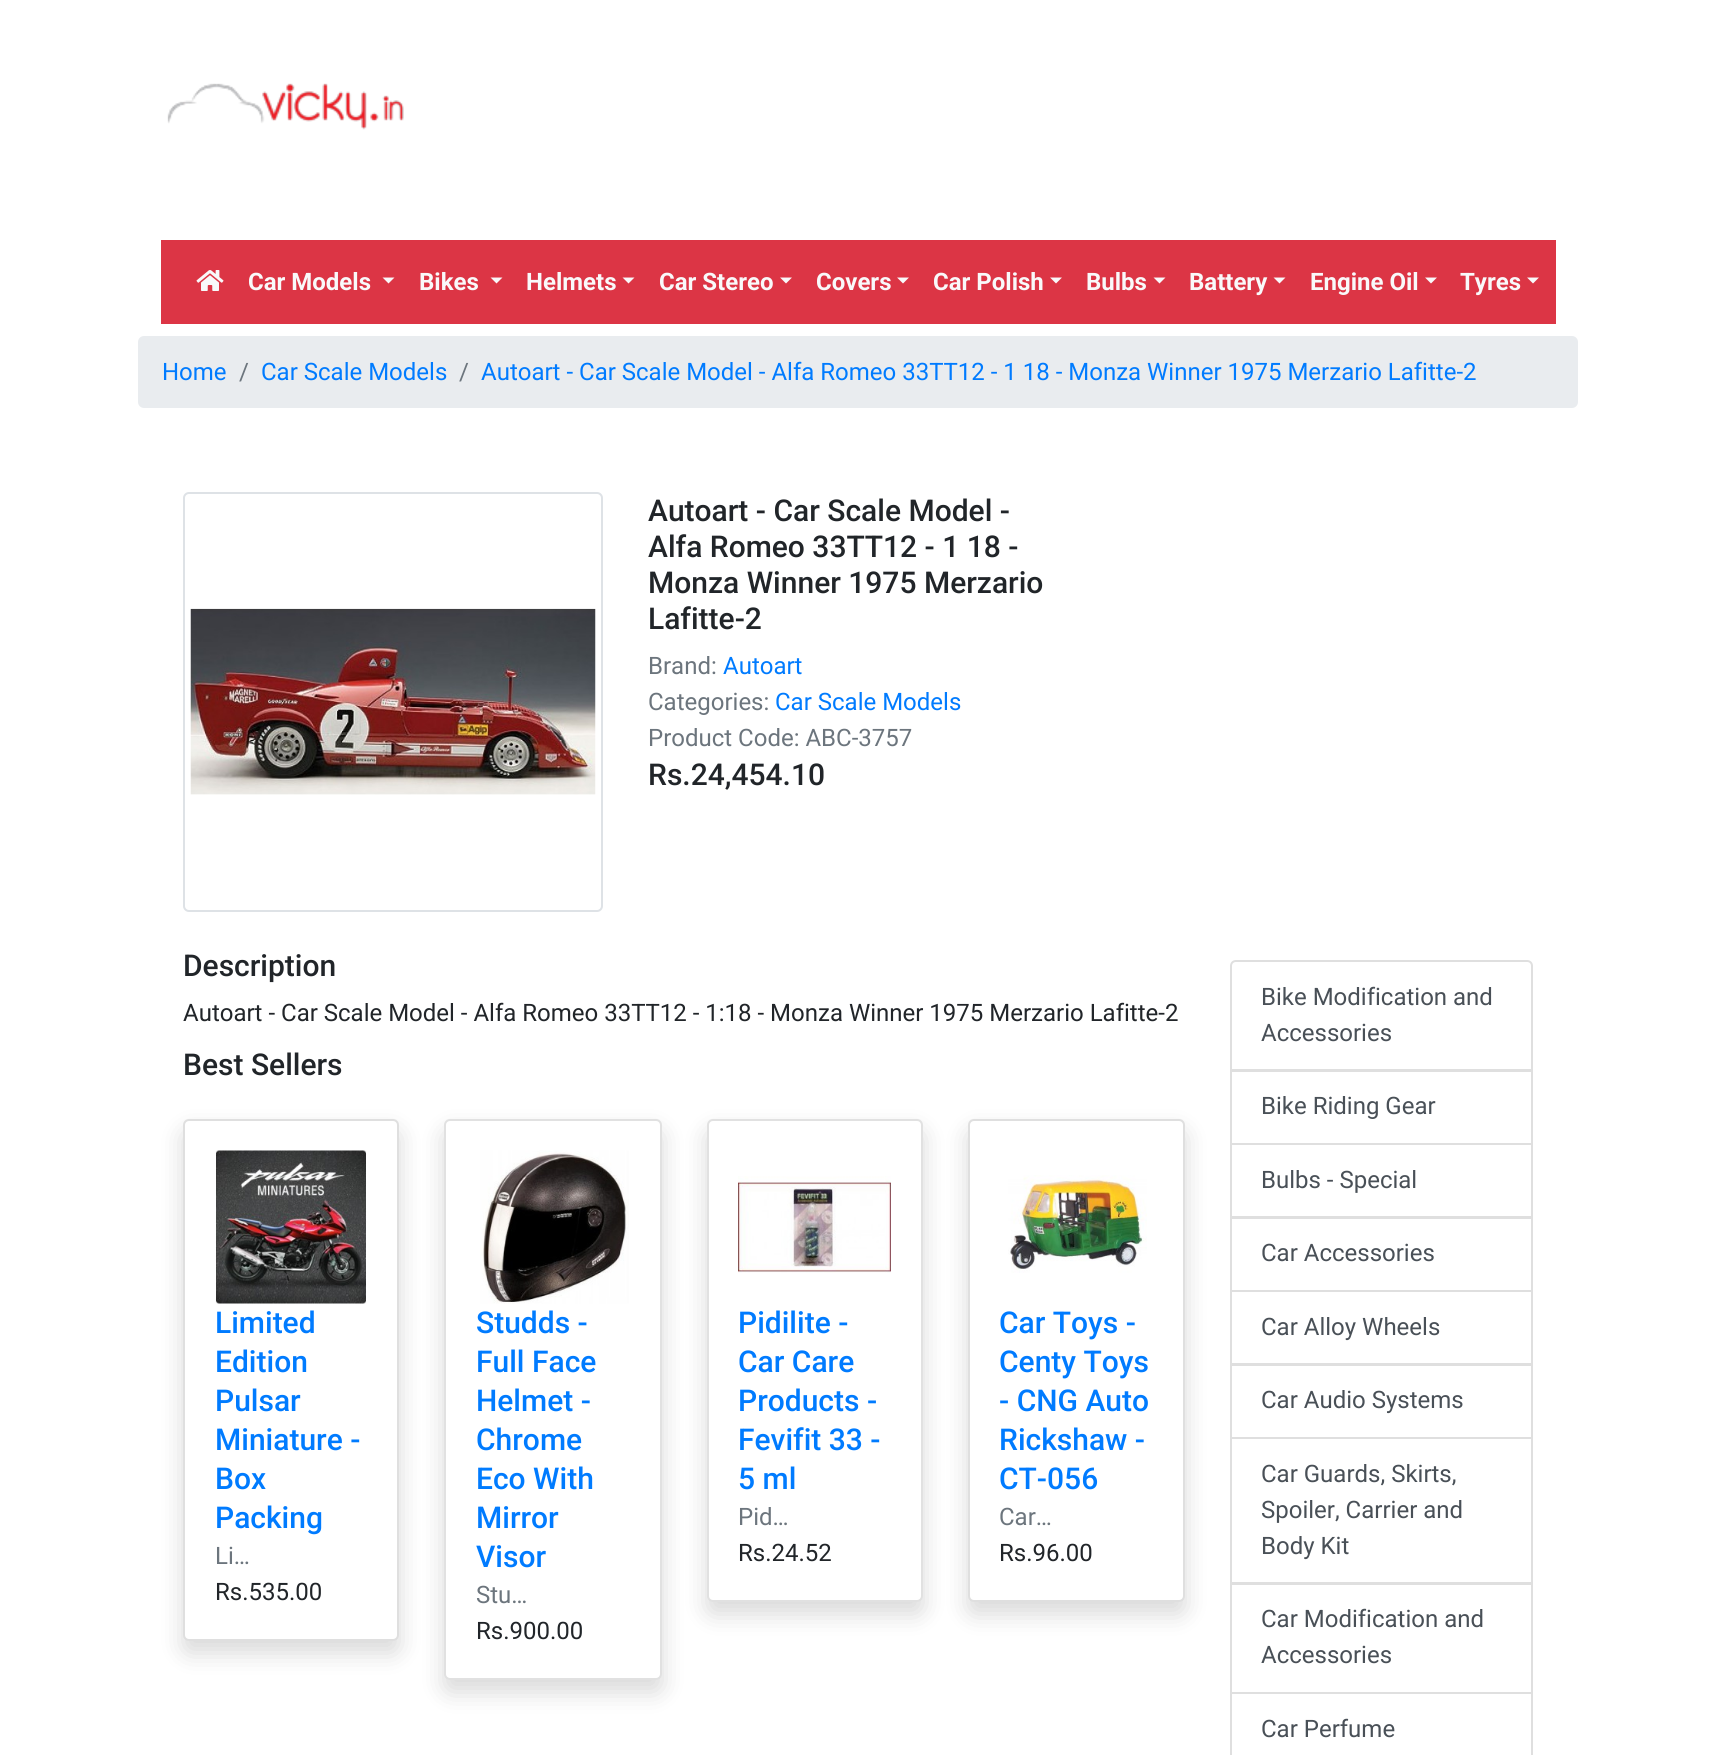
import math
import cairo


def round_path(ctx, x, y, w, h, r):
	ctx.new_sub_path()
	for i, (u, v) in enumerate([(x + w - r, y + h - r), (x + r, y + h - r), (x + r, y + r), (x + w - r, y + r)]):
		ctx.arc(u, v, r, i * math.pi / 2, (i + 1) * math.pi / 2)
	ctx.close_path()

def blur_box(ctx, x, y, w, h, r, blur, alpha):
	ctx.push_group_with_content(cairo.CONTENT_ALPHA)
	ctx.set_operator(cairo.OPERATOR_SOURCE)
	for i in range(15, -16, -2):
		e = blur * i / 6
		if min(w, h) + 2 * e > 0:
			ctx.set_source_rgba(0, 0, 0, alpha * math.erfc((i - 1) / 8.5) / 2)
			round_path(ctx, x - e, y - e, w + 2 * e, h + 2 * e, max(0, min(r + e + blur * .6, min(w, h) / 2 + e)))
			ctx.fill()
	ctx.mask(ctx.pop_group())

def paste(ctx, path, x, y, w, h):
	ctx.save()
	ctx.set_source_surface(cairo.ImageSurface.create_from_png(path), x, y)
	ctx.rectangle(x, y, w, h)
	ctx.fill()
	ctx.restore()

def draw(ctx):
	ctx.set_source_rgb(1, 1, 1)
	ctx.paint()
	paste(ctx, 'media/1.png', 167, 83, 237, 47)
	ctx.set_source_rgb(0.863, 0.208, 0.271)
	ctx.rectangle(161, 240, 1395, 84)
	ctx.fill()
	paste(ctx, 'media/2.png', 196, 270, 28, 21)
	ctx.select_font_face('Roboto', cairo.FONT_SLANT_NORMAL, cairo.FONT_WEIGHT_BOLD)
	ctx.set_font_size(24)
	ctx.set_source_rgb(0.973, 0.976, 0.98)
	ctx.move_to(248, 290)
	ctx.show_text('Car Models')
	ctx.new_path()
	ctx.move_to(382.5, 277.5)
	ctx.line_to(394.5, 277.5)
	ctx.line_to(388.5, 283.5)
	ctx.close_path()
	ctx.fill()
	ctx.move_to(419, 290)
	ctx.show_text('Bikes')
	ctx.new_path()
	ctx.move_to(490.5, 277.5)
	ctx.line_to(502.5, 277.5)
	ctx.line_to(496.5, 283.5)
	ctx.close_path()
	ctx.fill()
	ctx.move_to(526, 290)
	ctx.show_text('Helmets')
	ctx.new_path()
	ctx.move_to(622.5, 277.5)
	ctx.line_to(634.5, 277.5)
	ctx.line_to(628.5, 283.5)
	ctx.close_path()
	ctx.fill()
	ctx.move_to(659, 290)
	ctx.show_text('Car Stereo')
	ctx.new_path()
	ctx.move_to(780, 277.5)
	ctx.line_to(792, 277.5)
	ctx.line_to(786, 283.5)
	ctx.close_path()
	ctx.fill()
	ctx.move_to(816, 290)
	ctx.show_text('Covers')
	ctx.new_path()
	ctx.move_to(897, 277.5)
	ctx.line_to(909, 277.5)
	ctx.line_to(903, 283.5)
	ctx.close_path()
	ctx.fill()
	ctx.move_to(933, 290)
	ctx.show_text('Car Polish')
	ctx.new_path()
	ctx.move_to(1050, 277.5)
	ctx.line_to(1062, 277.5)
	ctx.line_to(1056, 283.5)
	ctx.close_path()
	ctx.fill()
	ctx.move_to(1086, 290)
	ctx.show_text('Bulbs')
	ctx.new_path()
	ctx.move_to(1153.5, 277.5)
	ctx.line_to(1165.5, 277.5)
	ctx.line_to(1159.5, 283.5)
	ctx.close_path()
	ctx.fill()
	ctx.move_to(1189, 290)
	ctx.show_text('Battery')
	ctx.new_path()
	ctx.move_to(1273.5, 277.5)
	ctx.line_to(1285.5, 277.5)
	ctx.line_to(1279.5, 283.5)
	ctx.close_path()
	ctx.fill()
	ctx.move_to(1310, 290)
	ctx.show_text('Engine Oil')
	ctx.new_path()
	ctx.move_to(1425, 277.5)
	ctx.line_to(1437, 277.5)
	ctx.line_to(1431, 283.5)
	ctx.close_path()
	ctx.fill()
	ctx.move_to(1460, 290)
	ctx.show_text('Tyres')
	ctx.new_path()
	ctx.move_to(1527, 277.5)
	ctx.line_to(1539, 277.5)
	ctx.line_to(1533, 283.5)
	ctx.close_path()
	ctx.fill()
	ctx.set_source_rgb(0.914, 0.925, 0.937)
	round_path(ctx, 138, 336, 1440, 72, 6)
	ctx.fill()
	ctx.select_font_face('Roboto')
	ctx.set_source_rgb(0, 0.482, 1)
	ctx.move_to(162, 380)
	ctx.show_text('Home')
	ctx.set_source_rgb(0.424, 0.459, 0.49)
	ctx.move_to(239, 380)
	ctx.show_text('/')
	ctx.set_source_rgb(0, 0.482, 1)
	ctx.move_to(261, 380)
	ctx.show_text('Car Scale Models')
	ctx.set_source_rgb(0.424, 0.459, 0.49)
	ctx.move_to(459, 380)
	ctx.show_text('/')
	ctx.set_source_rgb(0, 0.482, 1)
	ctx.move_to(481, 380)
	ctx.show_text('Autoart - Car Scale Model - Alfa Romeo 33TT12 - 1 18 - Monza Winner 1975 Merzario Lafitte-2')
	round_path(ctx, 184, 493, 418, 418, 5)
	ctx.set_source_rgb(0.871, 0.886, 0.902)
	ctx.stroke()
	paste(ctx, 'media/3.png', 190, 608, 406, 187)
	ctx.select_font_face('Roboto Medium')
	ctx.set_font_size(30)
	ctx.set_source_rgb(0.129, 0.145, 0.161)
	for x, y, s in [
		(648, 521, 'Autoart - Car Scale Model -'),
		(648, 557, 'Alfa Romeo 33TT12 - 1 18 -'),
		(648, 593, 'Monza Winner 1975 Merzario'),
		(648, 629, 'Lafitte-2'),
	]:
		ctx.move_to(x, y)
		ctx.show_text(s)
	ctx.select_font_face('Roboto')
	ctx.set_font_size(24)
	ctx.set_source_rgb(0.424, 0.459, 0.49)
	ctx.move_to(648, 674)
	ctx.show_text('Brand:')
	ctx.set_source_rgb(0, 0.482, 1)
	ctx.move_to(723, 674)
	ctx.show_text('Autoart')
	ctx.set_source_rgb(0.424, 0.459, 0.49)
	ctx.move_to(648, 710)
	ctx.show_text('Categories:')
	ctx.set_source_rgb(0, 0.482, 1)
	ctx.move_to(775, 710)
	ctx.show_text('Car Scale Models')
	ctx.set_source_rgb(0.424, 0.459, 0.49)
	ctx.move_to(648, 746)
	ctx.show_text('Product Code: ABC-3757')
	ctx.select_font_face('Roboto Medium')
	ctx.set_font_size(30)
	ctx.set_source_rgb(0.129, 0.145, 0.161)
	ctx.move_to(648, 785)
	ctx.show_text('Rs.24,454.10')
	ctx.move_to(183, 976)
	ctx.show_text('Description')
	ctx.select_font_face('Roboto')
	ctx.set_font_size(24)
	ctx.move_to(183, 1021)
	ctx.show_text('Autoart - Car Scale Model - Alfa Romeo 33TT12 - 1:18 - Monza Winner 1975 Merzario Lafitte-2')
	ctx.select_font_face('Roboto Medium')
	ctx.set_font_size(30)
	ctx.move_to(183, 1075)
	ctx.show_text('Best Sellers')
	ctx.set_source_rgb(0, 0, 0)
	blur_box(ctx, 183, 1131, 216, 522, 6, 12, 0.15)
	ctx.set_source_rgb(1, 1, 1)
	round_path(ctx, 184, 1120, 214, 520, 5)
	ctx.fill_preserve()
	ctx.set_source_rgb(0.875, 0.875, 0.875)
	ctx.stroke()
	paste(ctx, 'media/4.png', 215, 1150, 152, 154)
	ctx.set_source_rgb(0, 0.482, 1)
	for x, y, s in [
		(215, 1333, 'Limited'),
		(215, 1372, 'Edition'),
		(215, 1411, 'Pulsar'),
		(215, 1450, 'Miniature -'),
		(215, 1489, 'Box'),
		(215, 1528, 'Packing'),
	]:
		ctx.move_to(x, y)
		ctx.show_text(s)
	ctx.select_font_face('Roboto')
	ctx.set_font_size(24)
	ctx.set_source_rgb(0.424, 0.459, 0.49)
	ctx.move_to(215, 1564)
	ctx.show_text('Li…')
	ctx.set_source_rgb(0.129, 0.145, 0.161)
	ctx.move_to(215, 1600)
	ctx.show_text('Rs.535.00')
	ctx.set_source_rgb(0, 0, 0)
	blur_box(ctx, 444, 1131, 218, 561, 6, 12, 0.15)
	ctx.set_source_rgb(1, 1, 1)
	round_path(ctx, 444, 1119, 218, 561, 6)
	ctx.fill()
	round_path(ctx, 445, 1120, 216, 559, 5)
	ctx.set_source_rgba(0, 0, 0, 0.12)
	ctx.stroke()
	paste(ctx, 'media/5.png', 480, 1150, 149, 154)
	ctx.select_font_face('Roboto Medium')
	ctx.set_font_size(30)
	ctx.set_source_rgb(0, 0.482, 1)
	for x, y, s in [
		(476, 1333, 'Studds -'),
		(476, 1372, 'Full Face'),
		(476, 1411, 'Helmet -'),
		(476, 1450, 'Chrome'),
		(476, 1489, 'Eco With'),
		(476, 1528, 'Mirror'),
		(476, 1567, 'Visor'),
	]:
		ctx.move_to(x, y)
		ctx.show_text(s)
	ctx.select_font_face('Roboto')
	ctx.set_font_size(24)
	ctx.set_source_rgb(0.424, 0.459, 0.49)
	ctx.move_to(476, 1603)
	ctx.show_text('Stu…')
	ctx.set_source_rgb(0.129, 0.145, 0.161)
	ctx.move_to(476, 1639)
	ctx.show_text('Rs.900.00')
	ctx.set_source_rgb(0, 0, 0)
	blur_box(ctx, 707, 1131, 216, 483, 6, 12, 0.15)
	ctx.set_source_rgb(1, 1, 1)
	round_path(ctx, 707, 1119, 216, 483, 6)
	ctx.fill()
	round_path(ctx, 708, 1120, 214, 481, 5)
	ctx.set_source_rgba(0, 0, 0, 0.12)
	ctx.stroke()
	paste(ctx, 'media/6.png', 738, 1176, 153, 97)
	ctx.select_font_face('Roboto Medium')
	ctx.set_font_size(30)
	ctx.set_source_rgb(0, 0.482, 1)
	for x, y, s in [
		(738, 1333, 'Pidilite -'),
		(738, 1372, 'Car Care'),
		(738, 1411, 'Products -'),
		(738, 1450, 'Fevifit 33 -'),
		(738, 1489, '5 ml'),
	]:
		ctx.move_to(x, y)
		ctx.show_text(s)
	ctx.select_font_face('Roboto')
	ctx.set_font_size(24)
	ctx.set_source_rgb(0.424, 0.459, 0.49)
	ctx.move_to(738, 1525)
	ctx.show_text('Pid…')
	ctx.set_source_rgb(0.129, 0.145, 0.161)
	ctx.move_to(738, 1561)
	ctx.show_text('Rs.24.52')
	ctx.set_source_rgb(0, 0, 0)
	blur_box(ctx, 968, 1131, 217, 483, 6, 12, 0.15)
	ctx.set_source_rgb(1, 1, 1)
	round_path(ctx, 969, 1120, 215, 481, 5)
	ctx.fill_preserve()
	ctx.set_source_rgb(0.875, 0.875, 0.875)
	ctx.stroke()
	paste(ctx, 'media/7.png', 1008, 1175, 139, 98)
	ctx.select_font_face('Roboto Medium')
	ctx.set_font_size(30)
	ctx.set_source_rgb(0, 0.482, 1)
	for x, y, s in [
		(999, 1333, 'Car Toys -'),
		(999, 1372, 'Centy Toys'),
		(999, 1411, '- CNG Auto'),
		(999, 1450, 'Rickshaw -'),
		(999, 1489, 'CT-056'),
	]:
		ctx.move_to(x, y)
		ctx.show_text(s)
	ctx.select_font_face('Roboto')
	ctx.set_font_size(24)
	ctx.set_source_rgb(0.424, 0.459, 0.49)
	ctx.move_to(999, 1525)
	ctx.show_text('Car…')
	ctx.set_source_rgb(0.129, 0.145, 0.161)
	ctx.move_to(999, 1561)
	ctx.show_text('Rs.96.00')
	ctx.new_path()
	ctx.move_to(1236, 961)
	ctx.line_to(1527, 961)
	ctx.curve_to(1530, 961, 1532, 963, 1532, 966)
	ctx.line_to(1532, 1070)
	ctx.line_to(1231, 1070)
	ctx.line_to(1231, 966)
	ctx.curve_to(1231, 963, 1233, 961, 1236, 961)
	ctx.close_path()
	ctx.set_source_rgb(0.875, 0.875, 0.875)
	ctx.stroke()
	ctx.set_source_rgb(0.286, 0.314, 0.341)
	ctx.move_to(1261, 1005)
	ctx.show_text('Bike Modification and')
	ctx.move_to(1261, 1041)
	ctx.show_text('Accessories')
	ctx.rectangle(1231, 1071, 301, 73)
	ctx.set_source_rgb(0.875, 0.875, 0.875)
	ctx.stroke()
	ctx.set_source_rgb(0.286, 0.314, 0.341)
	ctx.move_to(1261, 1114)
	ctx.show_text('Bike Riding Gear')
	ctx.rectangle(1231, 1144, 301, 73)
	ctx.set_source_rgb(0.875, 0.875, 0.875)
	ctx.stroke()
	ctx.set_source_rgb(0.286, 0.314, 0.341)
	ctx.move_to(1261, 1188)
	ctx.show_text('Bulbs - Special')
	ctx.rectangle(1231, 1218, 301, 73)
	ctx.set_source_rgb(0.875, 0.875, 0.875)
	ctx.stroke()
	ctx.set_source_rgb(0.286, 0.314, 0.341)
	ctx.move_to(1261, 1261)
	ctx.show_text('Car Accessories')
	ctx.rectangle(1231, 1291, 301, 73)
	ctx.set_source_rgb(0.875, 0.875, 0.875)
	ctx.stroke()
	ctx.set_source_rgb(0.286, 0.314, 0.341)
	ctx.move_to(1261, 1335)
	ctx.show_text('Car Alloy Wheels')
	ctx.rectangle(1231, 1365, 301, 73)
	ctx.set_source_rgb(0.875, 0.875, 0.875)
	ctx.stroke()
	ctx.set_source_rgb(0.286, 0.314, 0.341)
	ctx.move_to(1261, 1408)
	ctx.show_text('Car Audio Systems')
	ctx.rectangle(1231, 1438, 301, 145)
	ctx.set_source_rgb(0.875, 0.875, 0.875)
	ctx.stroke()
	ctx.set_source_rgb(0.286, 0.314, 0.341)
	for x, y, s in [
		(1261, 1482, 'Car Guards, Skirts,'),
		(1261, 1518, 'Spoiler, Carrier and'),
		(1261, 1554, 'Body Kit'),
	]:
		ctx.move_to(x, y)
		ctx.show_text(s)
	ctx.rectangle(1231, 1584, 301, 109)
	ctx.set_source_rgb(0.875, 0.875, 0.875)
	ctx.stroke()
	ctx.set_source_rgb(0.286, 0.314, 0.341)
	ctx.move_to(1261, 1627)
	ctx.show_text('Car Modification and')
	ctx.move_to(1261, 1663)
	ctx.show_text('Accessories')
	ctx.rectangle(1231, 1693, 301, 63)
	ctx.set_source_rgb(0.875, 0.875, 0.875)
	ctx.stroke()
	ctx.set_source_rgb(0.286, 0.314, 0.341)
	ctx.move_to(1261, 1737)
	ctx.show_text('Car Perfume')


surface = cairo.ImageSurface(cairo.FORMAT_RGB24, 1716, 1755)
ctx = cairo.Context(surface)
options = cairo.FontOptions()
options.set_hint_metrics(cairo.HINT_METRICS_OFF)
options.set_hint_style(cairo.HINT_STYLE_NONE)
ctx.set_font_options(options)
ctx.set_miter_limit(4)
draw(ctx)
surface.write_to_png('image.png')
